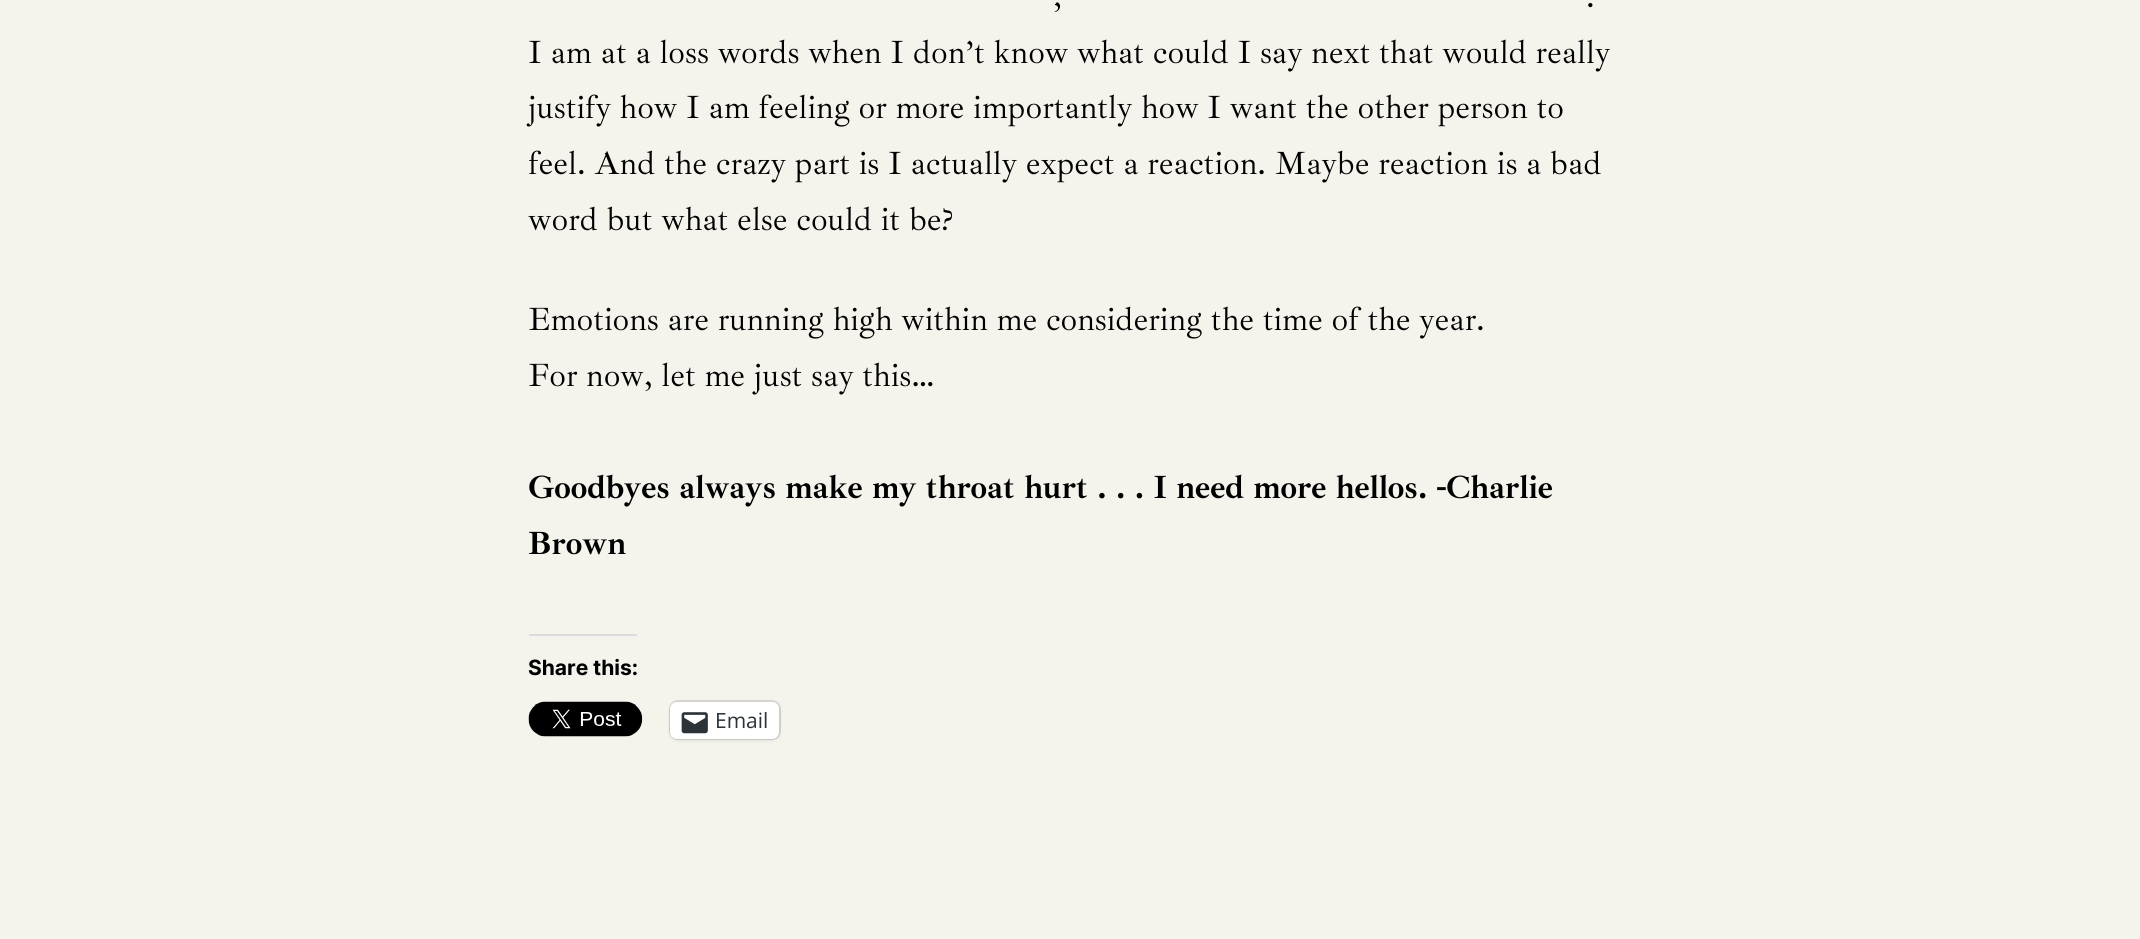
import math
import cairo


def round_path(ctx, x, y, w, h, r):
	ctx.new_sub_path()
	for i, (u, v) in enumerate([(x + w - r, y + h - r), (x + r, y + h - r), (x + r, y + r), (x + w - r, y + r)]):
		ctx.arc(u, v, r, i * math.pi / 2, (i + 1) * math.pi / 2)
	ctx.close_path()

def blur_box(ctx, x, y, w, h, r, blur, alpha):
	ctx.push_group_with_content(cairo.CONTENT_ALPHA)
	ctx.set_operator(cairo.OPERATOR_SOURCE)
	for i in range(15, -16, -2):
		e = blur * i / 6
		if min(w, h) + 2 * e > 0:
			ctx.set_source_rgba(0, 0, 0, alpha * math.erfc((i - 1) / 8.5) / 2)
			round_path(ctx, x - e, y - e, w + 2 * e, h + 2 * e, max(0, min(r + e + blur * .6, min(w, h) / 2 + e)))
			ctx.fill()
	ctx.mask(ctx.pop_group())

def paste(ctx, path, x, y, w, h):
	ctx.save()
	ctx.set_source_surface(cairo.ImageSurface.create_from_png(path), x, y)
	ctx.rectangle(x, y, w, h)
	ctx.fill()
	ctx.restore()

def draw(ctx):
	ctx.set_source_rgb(0.957, 0.953, 0.925)
	ctx.paint()
	ctx.select_font_face('Ibarra Real Nova')
	ctx.set_font_size(32.9)
	ctx.set_source_rgb(0, 0, 0)
	for x, y, s in [
		(1053, 7, ','),
		(1586, 7, '.'),
		(528, 63, 'I am at a loss words when I don’t know what could I say next that would really'),
		(528, 118, 'justify how I am feeling or more importantly how I want the other person to'),
		(528, 174, 'feel. And the crazy part is I actually expect a reaction. Maybe reaction is a bad'),
		(528, 230, 'word but what else could it be?'),
		(528, 330, 'Emotions are running high within me considering the time of the year.'),
		(528, 386, 'For now, let me just say this…'),
	]:
		ctx.move_to(x, y)
		ctx.show_text(s)
	ctx.select_font_face('Ibarra Real Nova', cairo.FONT_SLANT_NORMAL, cairo.FONT_WEIGHT_BOLD)
	ctx.move_to(528, 498)
	ctx.show_text('Goodbyes always make my throat hurt . . . I need more hellos. -Charlie')
	ctx.move_to(528, 554)
	ctx.show_text('Brown')
	ctx.set_source_rgb(0.863, 0.863, 0.871)
	ctx.rectangle(529, 634, 108, 2)
	ctx.fill()
	ctx.select_font_face('Inter', cairo.FONT_SLANT_NORMAL, cairo.FONT_WEIGHT_BOLD)
	ctx.set_font_size(21)
	ctx.set_source_rgb(0, 0, 0)
	ctx.move_to(528, 675)
	ctx.show_text('Share this:')
	paste(ctx, 'media/1.png', 528, 701, 115, 36)
	round_path(ctx, 670, 701, 110, 38, 8)
	ctx.set_source_rgb(0.843, 0.839, 0.816)
	ctx.stroke()
	ctx.set_source_rgb(0, 0, 0)
	blur_box(ctx, 670, 704, 109, 36, 7, 2, 0.12)
	ctx.set_source_rgb(1, 1, 1)
	round_path(ctx, 670, 702, 109, 37, 7)
	ctx.fill()
	paste(ctx, 'media/2.png', 681, 712, 27, 22)
	ctx.select_font_face('Open Sans')
	ctx.set_source_rgb(0.173, 0.2, 0.22)
	ctx.move_to(715, 728)
	ctx.show_text('Email')


surface = cairo.ImageSurface(cairo.FORMAT_RGB24, 2140, 939)
ctx = cairo.Context(surface)
options = cairo.FontOptions()
options.set_hint_metrics(cairo.HINT_METRICS_OFF)
options.set_hint_style(cairo.HINT_STYLE_NONE)
ctx.set_font_options(options)
ctx.set_miter_limit(4)
draw(ctx)
surface.write_to_png('image.png')
